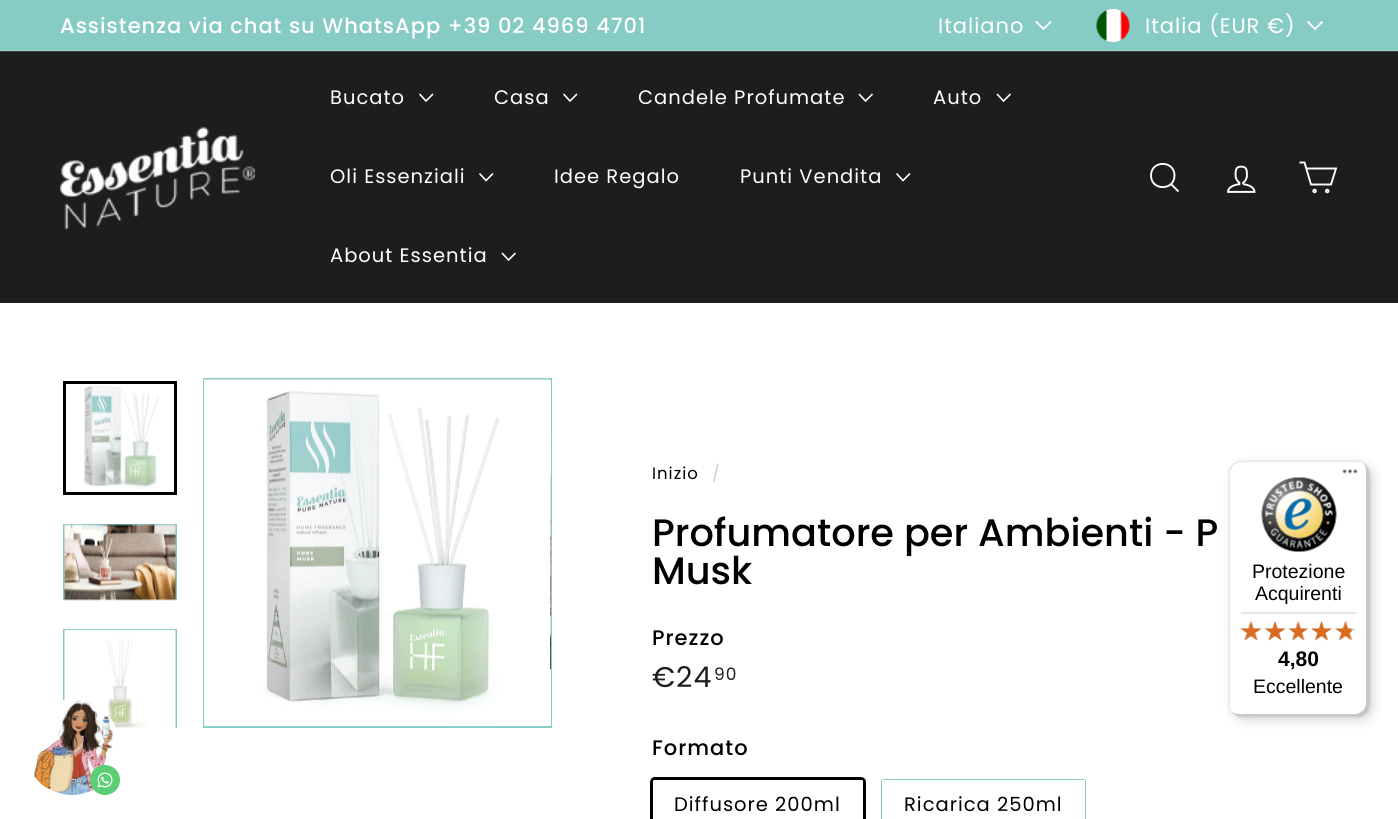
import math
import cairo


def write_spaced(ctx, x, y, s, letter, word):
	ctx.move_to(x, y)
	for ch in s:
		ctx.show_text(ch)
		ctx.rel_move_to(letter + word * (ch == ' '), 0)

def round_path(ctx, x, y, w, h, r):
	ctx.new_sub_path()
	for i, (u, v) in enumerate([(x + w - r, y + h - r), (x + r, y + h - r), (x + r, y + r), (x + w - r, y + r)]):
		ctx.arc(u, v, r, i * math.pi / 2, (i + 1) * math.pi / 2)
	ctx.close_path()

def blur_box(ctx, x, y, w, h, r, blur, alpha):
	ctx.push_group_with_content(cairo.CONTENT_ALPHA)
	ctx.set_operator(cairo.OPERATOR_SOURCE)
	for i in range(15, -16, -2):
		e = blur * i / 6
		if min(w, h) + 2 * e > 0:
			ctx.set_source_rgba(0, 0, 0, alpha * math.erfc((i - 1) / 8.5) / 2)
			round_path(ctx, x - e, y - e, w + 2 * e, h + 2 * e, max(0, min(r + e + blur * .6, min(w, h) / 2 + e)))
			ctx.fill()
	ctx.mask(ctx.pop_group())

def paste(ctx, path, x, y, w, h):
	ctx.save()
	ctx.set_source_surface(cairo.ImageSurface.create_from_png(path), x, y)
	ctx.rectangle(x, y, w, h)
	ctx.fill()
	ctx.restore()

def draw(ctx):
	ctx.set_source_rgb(1, 1, 1)
	ctx.paint()
	ctx.set_source_rgb(0.529, 0.796, 0.773)
	ctx.rectangle(0, 0, 1398, 50)
	ctx.fill()
	ctx.set_source_rgb(0.6, 0.827, 0.808)
	ctx.rectangle(0, 50, 1398, 1)
	ctx.fill()
	ctx.select_font_face('Poppins Medium')
	ctx.set_font_size(21)
	ctx.set_source_rgb(1, 1, 1)
	write_spaced(ctx, 60, 33, 'Assistenza via chat su WhatsApp +39 02 4969 4701', 1, 0)
	ctx.select_font_face('Poppins')
	write_spaced(ctx, 938, 33, 'Italiano', 1, 0)
	ctx.new_path()
	ctx.move_to(1036, 21.5)
	ctx.line_to(1043.5, 29)
	ctx.line_to(1051, 21.5)
	ctx.set_line_width(1.8)
	ctx.stroke()
	paste(ctx, 'media/1.png', 1096, 9, 34, 33)
	write_spaced(ctx, 1145, 33, 'Italia (EUR €)', 1, 0)
	ctx.new_path()
	ctx.move_to(1307.5, 21.5)
	ctx.line_to(1315, 29)
	ctx.line_to(1322.5, 21.5)
	ctx.stroke()
	ctx.set_source_rgb(0.11, 0.114, 0.114)
	ctx.rectangle(0, 52, 1398, 251)
	ctx.fill()
	ctx.set_source_rgb(0.243, 0.247, 0.247)
	ctx.rectangle(0, 51, 1398, 1)
	ctx.fill()
	paste(ctx, 'media/2.png', 60, 127, 195, 103)
	ctx.set_font_size(19.5)
	ctx.set_source_rgb(1, 1, 1)
	write_spaced(ctx, 330, 104, 'Bucato', 1, 0)
	ctx.new_path()
	ctx.move_to(419.5, 94)
	ctx.line_to(426, 101)
	ctx.line_to(433, 94)
	ctx.set_line_width(1.6)
	ctx.stroke()
	write_spaced(ctx, 494, 104, 'Casa', 1, 0)
	ctx.new_path()
	ctx.move_to(563.5, 94)
	ctx.line_to(570, 101)
	ctx.line_to(577, 94)
	ctx.stroke()
	write_spaced(ctx, 638, 104, 'Candele Profumate', 1, 0)
	ctx.new_path()
	ctx.move_to(859, 94)
	ctx.line_to(865.5, 101)
	ctx.line_to(872.5, 94)
	ctx.stroke()
	write_spaced(ctx, 933, 104, 'Auto', 1, 0)
	ctx.new_path()
	ctx.move_to(997, 94)
	ctx.line_to(1003.5, 101)
	ctx.line_to(1010.5, 94)
	ctx.stroke()
	write_spaced(ctx, 330, 183, 'Oli Essenziali', 1, 0)
	ctx.new_path()
	ctx.move_to(479.5, 173.5)
	ctx.line_to(486, 180.5)
	ctx.line_to(493, 173.5)
	ctx.stroke()
	write_spaced(ctx, 554, 183, 'Idee Regalo', 1, 0)
	write_spaced(ctx, 740, 183, 'Punti Vendita', 1, 0)
	ctx.new_path()
	ctx.move_to(896.5, 173.5)
	ctx.line_to(903, 180.5)
	ctx.line_to(910, 173.5)
	ctx.stroke()
	write_spaced(ctx, 330, 262, 'About Essentia', 1, 0)
	ctx.new_path()
	ctx.move_to(502, 253)
	ctx.line_to(508.5, 260)
	ctx.line_to(515.5, 253)
	ctx.stroke()
	ctx.new_path()
	ctx.move_to(1174.5, 175.5)
	ctx.curve_to(1174.5, 191, 1151, 191, 1151, 175.5)
	ctx.curve_to(1151, 160, 1174.5, 160, 1174.5, 175.5)
	ctx.move_to(1178.5, 191.5)
	ctx.line_to(1171, 184)
	ctx.set_line_width(1.9)
	ctx.stroke()
	paste(ctx, 'media/3.png', 1227, 165, 29, 28)
	ctx.new_path()
	ctx.move_to(1306.5, 168.5)
	ctx.line_to(1336, 168.5)
	ctx.line_to(1331, 184.5)
	ctx.line_to(1311, 184.5)
	ctx.line_to(1304.5, 162.5)
	ctx.line_to(1299.5, 162.5)
	ctx.stroke()
	ctx.arc(1314.6, 191, 1.3, 0, 2 * math.pi)
	ctx.stroke()
	ctx.arc(1327.2, 191, 1.3, 0, 2 * math.pi)
	ctx.stroke()
	paste(ctx, 'media/4.png', 66, 384, 108, 108)
	ctx.rectangle(64.5, 382.5, 111, 111)
	ctx.set_source_rgb(0, 0, 0)
	ctx.set_line_width(3)
	ctx.stroke()
	ctx.save()
	ctx.rectangle(63, 524, 114, 76)
	ctx.clip()
	ctx.rectangle(64, 525, 112, 76)
	ctx.set_source_rgb(0.529, 0.796, 0.773)
	ctx.set_line_width(2)
	ctx.stroke()
	ctx.restore()
	paste(ctx, 'media/5.png', 64, 524, 112, 77)
	ctx.save()
	ctx.rectangle(63, 629, 114, 99)
	ctx.clip()
	ctx.rectangle(64, 630, 112, 112)
	ctx.set_source_rgb(0.529, 0.796, 0.773)
	ctx.set_line_width(2)
	ctx.stroke()
	ctx.restore()
	paste(ctx, 'media/6.png', 64, 629, 112, 99)
	ctx.rectangle(204, 379, 347, 348)
	ctx.set_source_rgb(0.529, 0.796, 0.773)
	ctx.set_line_width(2)
	ctx.stroke()
	ctx.set_source_rgb(1, 1, 1)
	ctx.rectangle(204, 380, 347, 346)
	ctx.fill()
	paste(ctx, 'media/7.png', 204, 379, 347, 348)
	paste(ctx, 'media/8.png', 550, 438, 1, 232)
	ctx.set_font_size(16.5)
	ctx.set_source_rgb(0, 0, 0)
	write_spaced(ctx, 652, 479, 'Inizio', 1, 0)
	ctx.set_source_rgb(0.8, 0.8, 0.8)
	write_spaced(ctx, 712, 479, '/', 1, 0)
	ctx.select_font_face('Poppins Medium')
	ctx.set_font_size(38.25)
	ctx.set_source_rgb(0, 0, 0)
	ctx.move_to(652, 546)
	ctx.show_text('Profumatore per Ambienti - P')
	ctx.move_to(652, 584)
	ctx.show_text('Musk')
	ctx.set_font_size(21)
	write_spaced(ctx, 652, 645, 'Prezzo', 1, 0)
	ctx.select_font_face('Poppins')
	ctx.set_font_size(28.5)
	ctx.set_source_rgb(0.11, 0.114, 0.114)
	write_spaced(ctx, 652, 687, '€24', 1, 0)
	ctx.set_font_size(17)
	write_spaced(ctx, 714, 680, '90', 1, 0)
	ctx.select_font_face('Poppins Medium')
	ctx.set_font_size(21)
	ctx.set_source_rgb(0, 0, 0)
	write_spaced(ctx, 652, 755, 'Formato', 1, 0)
	round_path(ctx, 651.5, 778.5, 213, 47, 3.5)
	ctx.set_line_width(3)
	ctx.stroke()
	ctx.set_source_rgb(1, 1, 1)
	round_path(ctx, 653, 780, 210, 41, 1.5)
	ctx.fill()
	ctx.select_font_face('Poppins')
	ctx.set_font_size(19.5)
	ctx.set_source_rgb(0, 0, 0)
	write_spaced(ctx, 674, 811, 'Diffusore 200ml', 1, 0)
	round_path(ctx, 882, 780, 203, 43, 2)
	ctx.set_source_rgb(0.529, 0.796, 0.773)
	ctx.set_line_width(2)
	ctx.stroke()
	ctx.set_source_rgb(1, 1, 1)
	round_path(ctx, 882, 780, 203, 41, 1.5)
	ctx.fill()
	ctx.set_source_rgb(0, 0, 0)
	write_spaced(ctx, 904, 811, 'Ricarica 250ml', 1, 0)
	ctx.set_source_rgb(0, 0, 0)
	blur_box(ctx, 1233, 465, 140, 255, 12, 6, 0.15)
	blur_box(ctx, 1230, 462, 140, 255, 12, 1.5, 0.15)
	ctx.set_source_rgb(1, 1, 1)
	round_path(ctx, 1229, 461, 139, 255, 12)
	ctx.fill()
	ctx.set_source_rgb(0.898, 0.898, 0.898)
	ctx.new_path()
	ctx.move_to(1242, 462)
	ctx.line_to(1358, 462)
	ctx.line_to(1363, 463)
	ctx.curve_to(1361, 462, 1358, 461, 1356, 461)
	ctx.line_to(1241, 461)
	ctx.curve_to(1234, 461, 1229, 466, 1229, 473)
	ctx.line_to(1229, 704)
	ctx.curve_to(1229, 707, 1230, 710, 1232, 712)
	ctx.curve_to(1231, 710, 1230, 708, 1230, 705)
	ctx.line_to(1230, 474)
	ctx.curve_to(1230, 467, 1235, 462, 1242, 462)
	ctx.close_path()
	ctx.fill()
	ctx.set_source_rgba(0, 0, 0, 0.2)
	ctx.new_path()
	ctx.move_to(1232, 712)
	ctx.curve_to(1234, 714, 1237, 716, 1241, 716)
	ctx.line_to(1356, 716)
	ctx.curve_to(1363, 716, 1368, 711, 1368, 704)
	ctx.line_to(1368, 473)
	ctx.curve_to(1368, 469, 1366, 466, 1364, 464)
	ctx.curve_to(1365, 466, 1366, 468, 1366, 471)
	ctx.line_to(1366, 702)
	ctx.curve_to(1366, 709, 1361, 714, 1354, 714)
	ctx.line_to(1239, 714)
	ctx.curve_to(1236, 714, 1234, 713, 1232, 712)
	ctx.close_path()
	ctx.fill()
	ctx.set_source_rgba(0.196, 0.196, 0.196, 0.2)
	ctx.new_path()
	ctx.move_to(1232, 712)
	ctx.curve_to(1234, 714, 1237, 716, 1241, 716)
	ctx.line_to(1356, 716)
	ctx.curve_to(1363, 716, 1368, 711, 1368, 704)
	ctx.line_to(1368, 473)
	ctx.curve_to(1368, 470, 1367, 467, 1365, 465)
	ctx.curve_to(1366, 467, 1367, 469, 1367, 472)
	ctx.line_to(1367, 703)
	ctx.curve_to(1367, 709, 1362, 715, 1355, 715)
	ctx.line_to(1240, 715)
	ctx.curve_to(1237, 715, 1234, 714, 1232, 712)
	ctx.close_path()
	ctx.fill()
	ctx.set_source_rgba(1, 1, 1, 0.3)
	ctx.new_path()
	ctx.move_to(1232, 712)
	ctx.curve_to(1234, 714, 1237, 716, 1241, 716)
	ctx.line_to(1356, 716)
	ctx.curve_to(1363, 716, 1368, 711, 1368, 704)
	ctx.line_to(1368, 473)
	ctx.curve_to(1368, 470, 1367, 467, 1365, 465)
	ctx.curve_to(1366, 467, 1367, 469, 1367, 472)
	ctx.line_to(1367, 703)
	ctx.curve_to(1367, 709, 1362, 715, 1355, 715)
	ctx.line_to(1240, 715)
	ctx.curve_to(1237, 715, 1234, 714, 1232, 712)
	ctx.close_path()
	ctx.fill()
	paste(ctx, 'media/9.png', 1342, 469, 16, 5)
	paste(ctx, 'media/10.png', 1261, 477, 76, 75)
	ctx.select_font_face('Liberation Sans')
	ctx.set_source_rgb(0, 0, 0)
	ctx.move_to(1252, 578)
	ctx.show_text('Protezione')
	ctx.move_to(1255, 600)
	ctx.show_text('Acquirenti')
	ctx.set_source_rgb(0.898, 0.898, 0.898)
	ctx.rectangle(1241, 612, 115, 2)
	ctx.fill()
	paste(ctx, 'media/11.png', 1240, 621, 22, 19)
	paste(ctx, 'media/12.png', 1264, 621, 22, 20)
	paste(ctx, 'media/13.png', 1288, 621, 20, 19)
	paste(ctx, 'media/14.png', 1311, 621, 21, 20)
	paste(ctx, 'media/15.png', 1335, 621, 21, 19)
	paste(ctx, 'media/16.png', 1240, 621, 22, 19)
	paste(ctx, 'media/17.png', 1265, 621, 20, 20)
	paste(ctx, 'media/18.png', 1288, 621, 20, 19)
	paste(ctx, 'media/19.png', 1311, 621, 21, 20)
	paste(ctx, 'media/20.png', 1335, 621, 17, 19)
	ctx.select_font_face('Liberation Sans', cairo.FONT_SLANT_NORMAL, cairo.FONT_WEIGHT_BOLD)
	ctx.set_font_size(21)
	ctx.set_source_rgb(0, 0, 0)
	ctx.move_to(1278, 666)
	ctx.show_text('4,80')
	ctx.select_font_face('Liberation Sans')
	ctx.set_font_size(19.5)
	ctx.move_to(1253, 693)
	ctx.show_text('Eccellente')
	paste(ctx, 'media/21.png', 33, 699, 83, 96)
	ctx.set_source_rgb(0.349, 0.808, 0.447)
	ctx.arc(105, 780, 15, 0, 2 * math.pi)
	ctx.fill()
	paste(ctx, 'media/22.png', 97, 772, 16, 16)


surface = cairo.ImageSurface(cairo.FORMAT_RGB24, 1398, 819)
ctx = cairo.Context(surface)
options = cairo.FontOptions()
options.set_hint_metrics(cairo.HINT_METRICS_OFF)
options.set_hint_style(cairo.HINT_STYLE_NONE)
ctx.set_font_options(options)
ctx.set_miter_limit(4)
draw(ctx)
surface.write_to_png('image.png')
